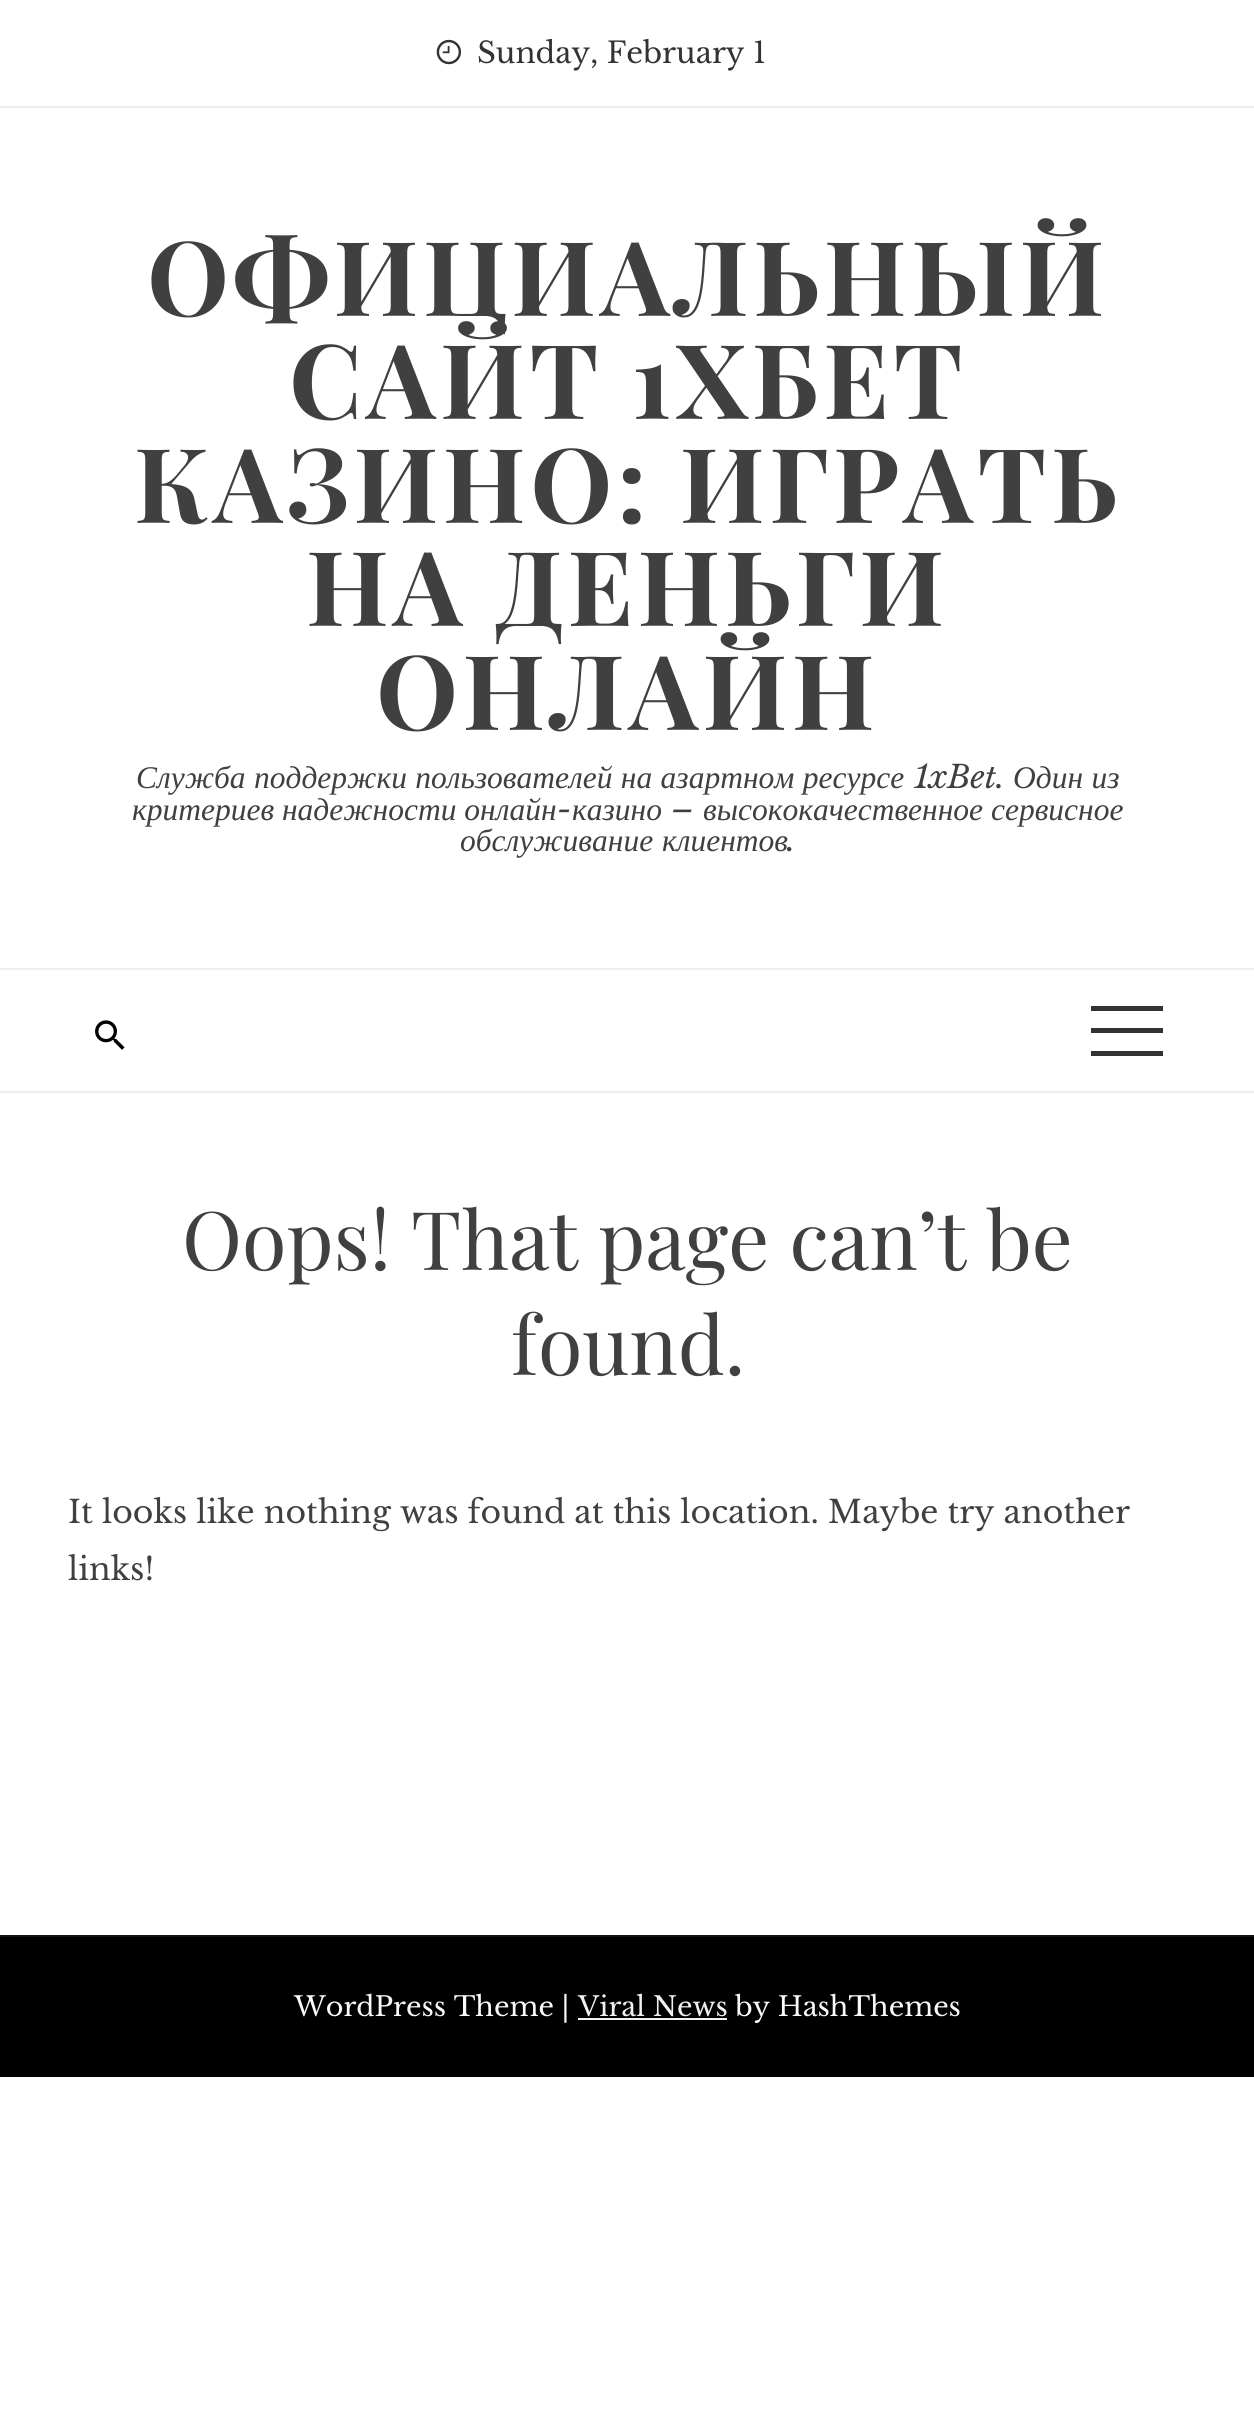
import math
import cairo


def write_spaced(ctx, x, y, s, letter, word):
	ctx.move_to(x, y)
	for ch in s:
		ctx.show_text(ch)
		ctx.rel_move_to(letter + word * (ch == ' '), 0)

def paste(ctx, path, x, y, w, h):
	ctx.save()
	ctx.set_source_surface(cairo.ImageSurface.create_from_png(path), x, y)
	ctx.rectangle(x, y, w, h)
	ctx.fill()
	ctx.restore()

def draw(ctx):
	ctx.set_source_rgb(1, 1, 1)
	ctx.paint()
	ctx.set_source_rgb(0.933, 0.933, 0.933)
	ctx.rectangle(0, 106, 1254, 2)
	ctx.fill()
	paste(ctx, 'media/1.png', 436, 39, 25, 26)
	ctx.select_font_face('Libre Baskerville')
	ctx.set_font_size(29.25)
	ctx.set_source_rgb(0.2, 0.2, 0.2)
	ctx.move_to(477, 63)
	ctx.show_text('Sunday, February 1')
	ctx.select_font_face('Playfair Display', cairo.FONT_SLANT_NORMAL, cairo.FONT_WEIGHT_BOLD)
	ctx.set_font_size(103.5)
	ctx.set_source_rgb(0.251, 0.251, 0.251)
	for x, y, s in [
		(147, 316, 'ОФИЦИАЛЬНЫЙ'),
		(289, 419, 'САЙТ 1ХБЕТ'),
		(134, 523, 'КАЗИНО: ИГРАТЬ'),
		(306, 626, 'НА ДЕНЬГИ'),
		(376, 730, 'ОНЛАЙН'),
	]:
		write_spaced(ctx, x, y, s, 4.5, 0)
	ctx.select_font_face('Liberation Serif', cairo.FONT_SLANT_ITALIC)
	ctx.set_font_size(31.5)
	write_spaced(ctx, 136, 788, 'Служба поддержки пользователей на азартном ресурсе', 0, 0.5)
	ctx.select_font_face('Libre Baskerville', cairo.FONT_SLANT_ITALIC)
	ctx.move_to(914, 788)
	ctx.show_text('1xBet.')
	ctx.select_font_face('Liberation Serif', cairo.FONT_SLANT_ITALIC)
	write_spaced(ctx, 1013, 788, 'Один из', 0, 0.5)
	ctx.move_to(132, 820)
	ctx.show_text('критериев надежности онлайн')
	ctx.select_font_face('Libre Baskerville', cairo.FONT_SLANT_ITALIC)
	ctx.move_to(557, 820)
	ctx.show_text('-')
	ctx.select_font_face('Liberation Serif', cairo.FONT_SLANT_ITALIC)
	ctx.move_to(572, 820)
	ctx.show_text('казино')
	ctx.select_font_face('Libre Baskerville', cairo.FONT_SLANT_ITALIC)
	ctx.move_to(671, 820)
	ctx.show_text('–')
	ctx.select_font_face('Liberation Serif', cairo.FONT_SLANT_ITALIC)
	ctx.move_to(703, 820)
	ctx.show_text('высококачественное сервисное')
	write_spaced(ctx, 460, 851, 'обслуживание клиентов', 0, 1)
	ctx.select_font_face('Libre Baskerville', cairo.FONT_SLANT_ITALIC)
	ctx.move_to(787, 851)
	ctx.show_text('.')
	ctx.set_source_rgb(0.933, 0.933, 0.933)
	ctx.rectangle(0, 968, 1254, 2)
	ctx.fill()
	ctx.rectangle(0, 1091, 1254, 2)
	ctx.fill()
	paste(ctx, 'media/2.png', 95, 1020, 30, 30)
	ctx.set_source_rgb(0.2, 0.2, 0.2)
	ctx.rectangle(1091, 1006, 72, 5)
	ctx.rectangle(1091, 1051, 72, 5)
	ctx.rectangle(1091, 1028, 72, 5)
	ctx.fill()
	ctx.select_font_face('Playfair Display')
	ctx.set_font_size(81)
	ctx.set_source_rgb(0.251, 0.251, 0.251)
	ctx.move_to(182, 1270)
	ctx.show_text('Oops! That page can’t be')
	ctx.move_to(511, 1375)
	ctx.show_text('found.')
	ctx.select_font_face('Libre Baskerville')
	ctx.set_font_size(31.5)
	ctx.move_to(68, 1523)
	ctx.show_text('It looks like nothing was found at this location. Maybe try another')
	ctx.move_to(68, 1580)
	ctx.show_text('links!')
	ctx.set_source_rgb(0, 0, 0)
	ctx.rectangle(0, 1937, 1254, 140)
	ctx.fill()
	ctx.set_source_rgb(0.067, 0.067, 0.067)
	ctx.rectangle(0, 1935, 1254, 2)
	ctx.fill()
	ctx.set_font_size(27)
	ctx.set_source_rgb(0.98, 0.98, 0.98)
	ctx.move_to(294, 2016)
	ctx.show_text('WordPress Theme |')
	ctx.set_source_rgb(0.941, 0.941, 0.941)
	ctx.move_to(578, 2016)
	ctx.show_text('Viral News')
	ctx.rectangle(578, 2018, 149, 2)
	ctx.fill()
	ctx.set_source_rgb(0.98, 0.98, 0.98)
	ctx.move_to(735, 2016)
	ctx.show_text('by HashThemes')


surface = cairo.ImageSurface(cairo.FORMAT_RGB24, 1254, 2435)
ctx = cairo.Context(surface)
options = cairo.FontOptions()
options.set_hint_metrics(cairo.HINT_METRICS_OFF)
options.set_hint_style(cairo.HINT_STYLE_NONE)
ctx.set_font_options(options)
ctx.set_miter_limit(4)
draw(ctx)
surface.write_to_png('image.png')
